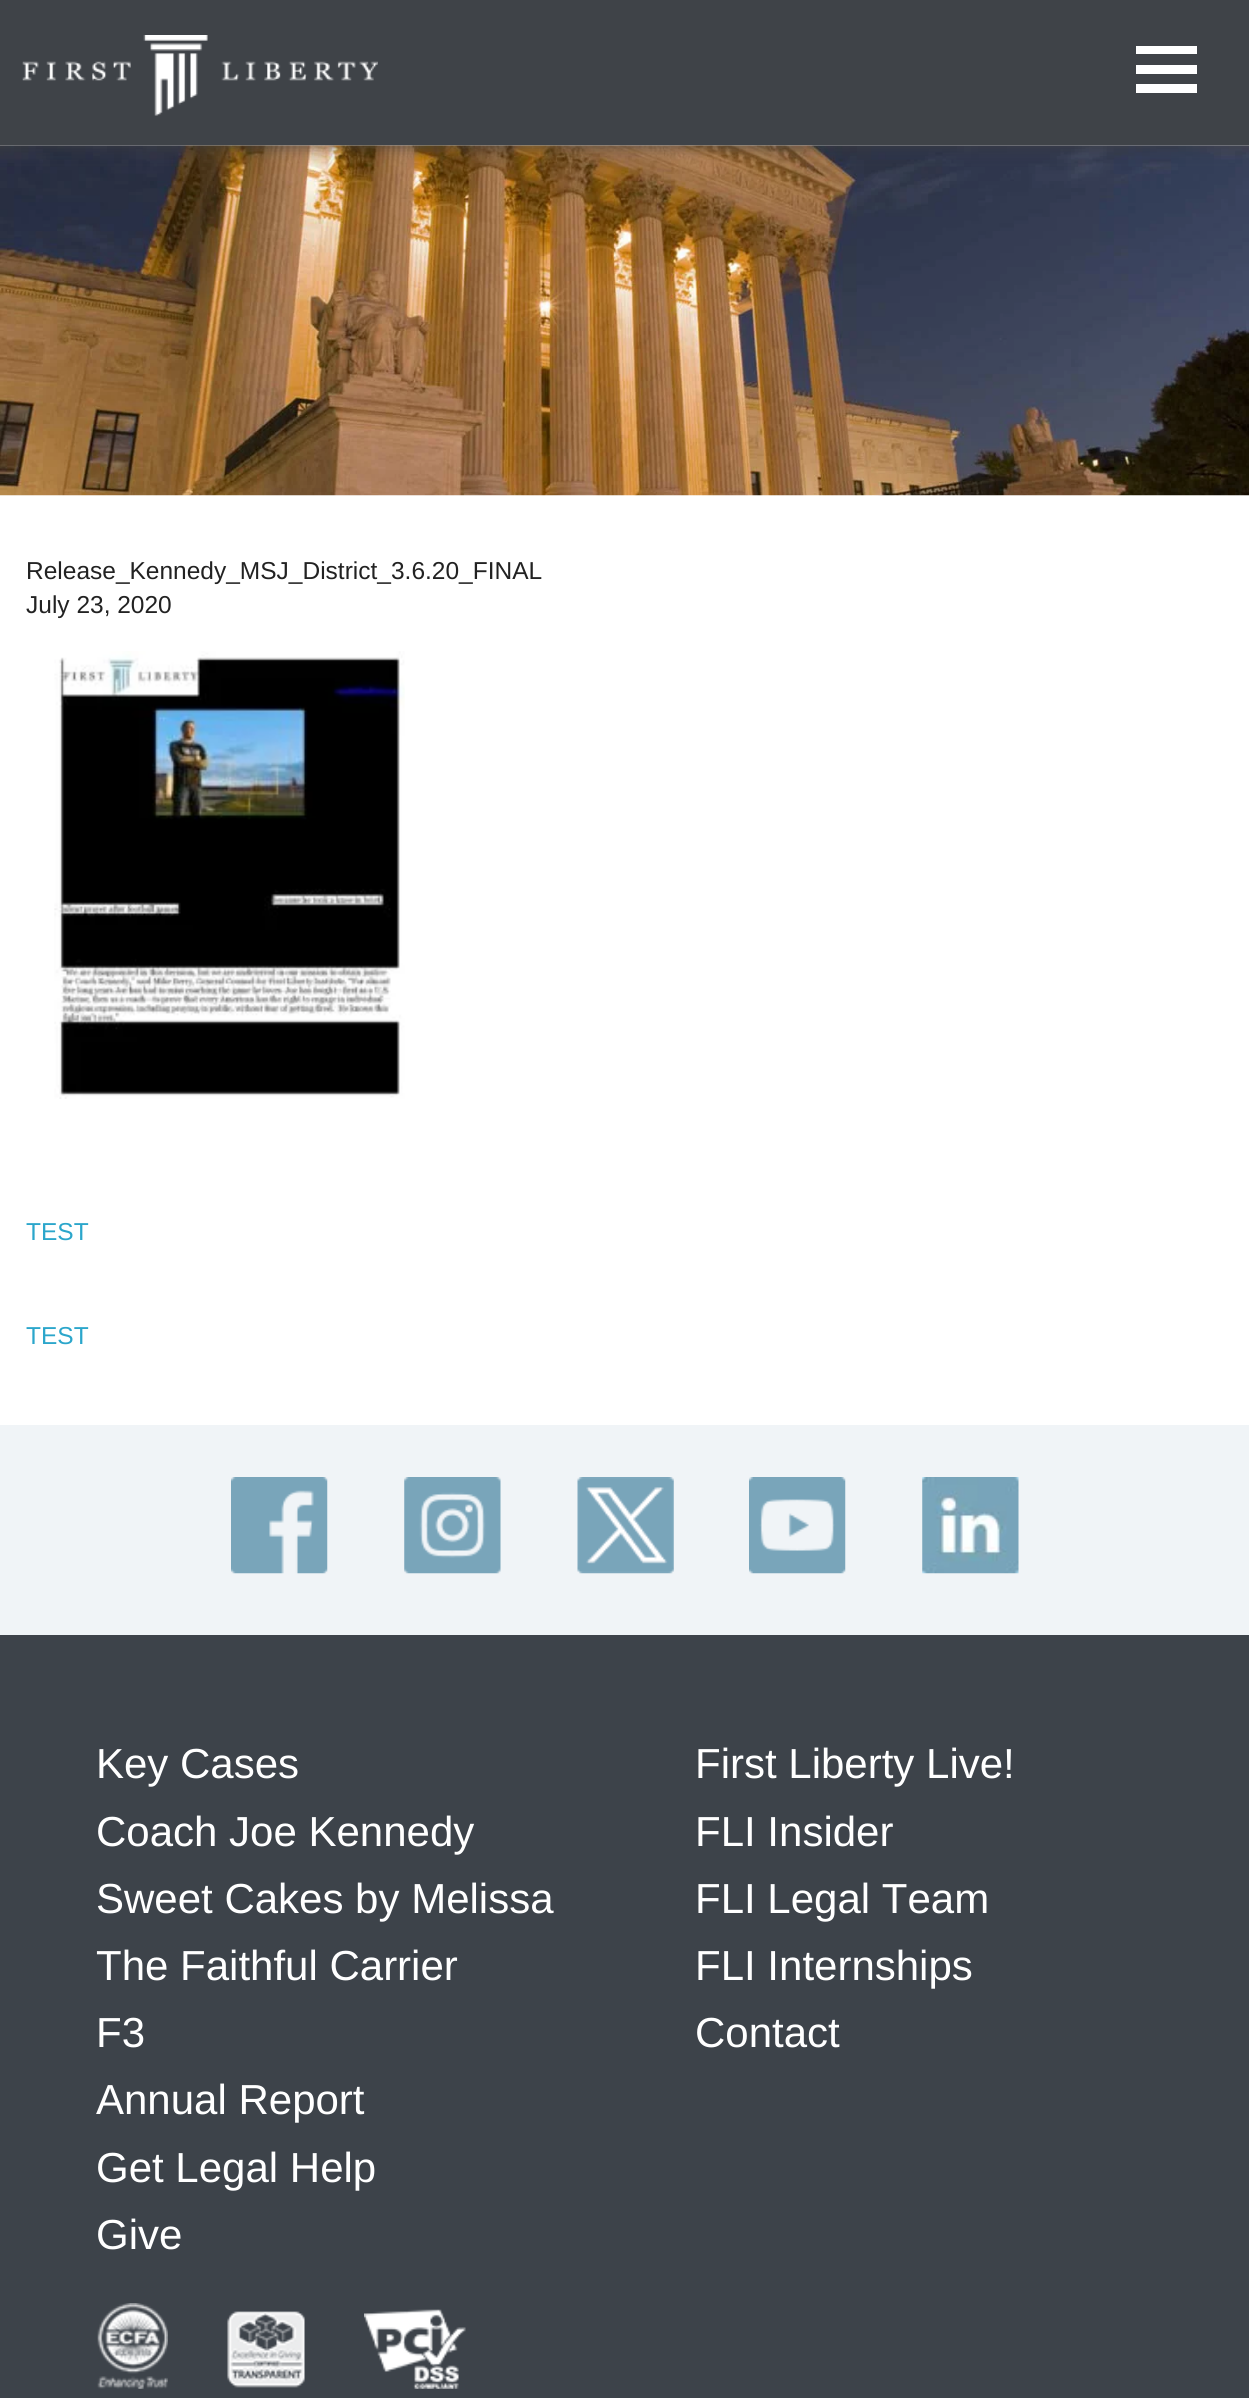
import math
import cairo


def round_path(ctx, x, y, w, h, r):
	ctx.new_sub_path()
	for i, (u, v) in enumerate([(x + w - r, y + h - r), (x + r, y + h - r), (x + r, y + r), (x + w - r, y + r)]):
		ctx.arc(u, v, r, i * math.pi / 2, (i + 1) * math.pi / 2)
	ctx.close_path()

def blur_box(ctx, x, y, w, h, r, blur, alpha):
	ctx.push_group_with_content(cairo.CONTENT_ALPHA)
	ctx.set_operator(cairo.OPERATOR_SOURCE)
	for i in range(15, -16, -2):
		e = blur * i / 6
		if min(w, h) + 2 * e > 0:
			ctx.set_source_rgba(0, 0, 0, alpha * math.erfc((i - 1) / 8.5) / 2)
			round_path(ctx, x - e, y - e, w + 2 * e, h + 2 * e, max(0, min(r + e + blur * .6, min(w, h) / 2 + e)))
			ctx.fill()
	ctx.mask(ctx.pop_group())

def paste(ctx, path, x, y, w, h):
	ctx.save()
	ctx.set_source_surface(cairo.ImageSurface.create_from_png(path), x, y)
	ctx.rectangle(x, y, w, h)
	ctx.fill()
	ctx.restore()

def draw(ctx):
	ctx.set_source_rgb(1, 1, 1)
	ctx.paint()
	paste(ctx, 'media/2.png', 0, 145, 1249, 351)
	ctx.set_source_rgb(0.251, 0.251, 0.251)
	blur_box(ctx, -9, -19, 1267, 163, 0, 9, 1)
	ctx.set_source_rgb(0.247, 0.263, 0.282)
	ctx.rectangle(0, 0, 1249, 145)
	ctx.fill()
	paste(ctx, 'media/1.png', 22, 35, 356, 81)
	ctx.set_source_rgb(1, 1, 1)
	ctx.rectangle(1136, 46, 61, 8)
	ctx.rectangle(1136, 65, 61, 9)
	ctx.rectangle(1136, 84, 61, 9)
	ctx.fill()
	ctx.select_font_face('Liberation Sans')
	ctx.set_font_size(24.5)
	ctx.set_source_rgb(0.133, 0.133, 0.133)
	ctx.move_to(26, 579)
	ctx.show_text('Release_Kennedy_MSJ_District_3.6.20_FINAL')
	ctx.move_to(26, 613)
	ctx.show_text('July 23, 2020')
	paste(ctx, 'media/3.png', 54, 651, 351, 448)
	ctx.set_source_rgb(0.169, 0.651, 0.796)
	ctx.move_to(26, 1240)
	ctx.show_text('TEST')
	ctx.move_to(26, 1344)
	ctx.show_text('TEST')
	ctx.set_source_rgb(0.941, 0.957, 0.965)
	ctx.rectangle(0, 1425, 1249, 210)
	ctx.fill()
	paste(ctx, 'media/4.png', 231, 1477, 97, 97)
	paste(ctx, 'media/5.png', 404, 1477, 97, 97)
	paste(ctx, 'media/6.png', 577, 1477, 97, 97)
	paste(ctx, 'media/7.png', 749, 1477, 97, 97)
	paste(ctx, 'media/8.png', 922, 1477, 97, 97)
	ctx.set_source_rgb(0.239, 0.263, 0.29)
	ctx.rectangle(0, 1635, 1249, 763)
	ctx.fill()
	ctx.set_font_size(42)
	ctx.set_source_rgb(1, 1, 1)
	for x, y, s in [
		(96, 1778, 'Key Cases'),
		(96, 1846, 'Coach Joe Kennedy'),
		(96, 1913, 'Sweet Cakes by Melissa'),
		(96, 1980, 'The Faithful Carrier'),
		(96, 2047, 'F3'),
		(695, 1778, 'First Liberty Live!'),
		(695, 1846, 'FLI Insider'),
		(695, 1913, 'FLI Legal Team'),
		(695, 1980, 'FLI Internships'),
		(695, 2047, 'Contact'),
		(96, 2114, 'Annual Report'),
		(96, 2182, 'Get Legal Help'),
		(96, 2249, 'Give'),
	]:
		ctx.move_to(x, y)
		ctx.show_text(s)
	paste(ctx, 'media/9.png', 97, 2303, 71, 86)
	paste(ctx, 'media/10.png', 227, 2311, 78, 77)
	paste(ctx, 'media/11.png', 364, 2309, 102, 80)


surface = cairo.ImageSurface(cairo.FORMAT_RGB24, 1249, 2398)
ctx = cairo.Context(surface)
options = cairo.FontOptions()
options.set_hint_metrics(cairo.HINT_METRICS_OFF)
options.set_hint_style(cairo.HINT_STYLE_NONE)
ctx.set_font_options(options)
ctx.set_miter_limit(4)
draw(ctx)
surface.write_to_png('image.png')
